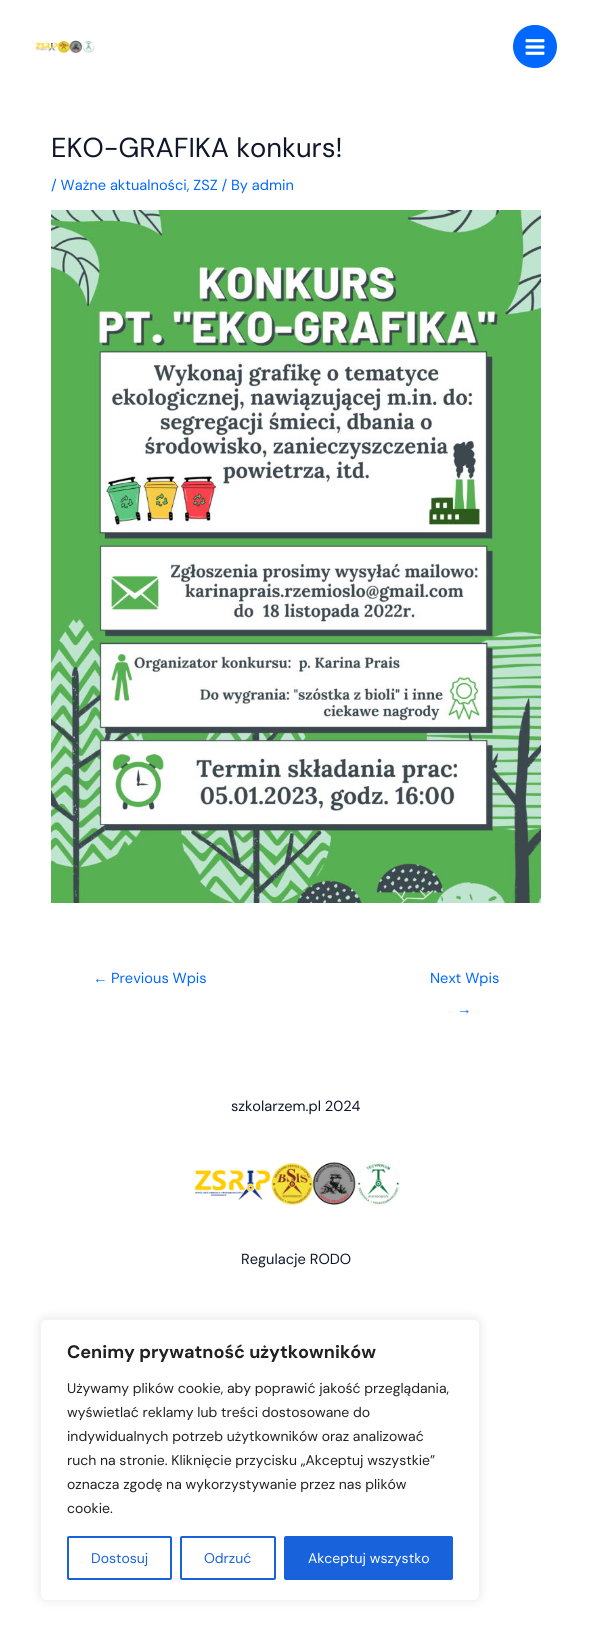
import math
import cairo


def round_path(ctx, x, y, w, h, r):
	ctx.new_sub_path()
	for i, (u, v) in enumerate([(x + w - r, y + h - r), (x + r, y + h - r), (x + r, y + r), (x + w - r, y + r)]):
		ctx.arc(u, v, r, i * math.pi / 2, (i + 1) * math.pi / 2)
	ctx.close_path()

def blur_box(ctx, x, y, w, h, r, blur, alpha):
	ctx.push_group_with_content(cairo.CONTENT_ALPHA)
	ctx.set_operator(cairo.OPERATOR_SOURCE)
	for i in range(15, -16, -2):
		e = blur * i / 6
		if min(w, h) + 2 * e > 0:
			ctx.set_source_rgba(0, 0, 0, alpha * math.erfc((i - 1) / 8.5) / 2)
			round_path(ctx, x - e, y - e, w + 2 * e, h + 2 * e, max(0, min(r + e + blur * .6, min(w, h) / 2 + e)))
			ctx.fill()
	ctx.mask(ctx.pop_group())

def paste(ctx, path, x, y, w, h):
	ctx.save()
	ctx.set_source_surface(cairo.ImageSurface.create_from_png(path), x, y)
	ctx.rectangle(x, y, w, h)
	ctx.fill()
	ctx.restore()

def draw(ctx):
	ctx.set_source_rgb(1, 1, 1)
	ctx.paint()
	paste(ctx, 'media/1.png', 36, 40, 59, 14)
	ctx.set_source_rgb(0, 0.404, 1)
	round_path(ctx, 513, 25, 44, 43, 21.5)
	ctx.fill()
	paste(ctx, 'media/2.png', 525, 39, 20, 16)
	ctx.select_font_face('DM Sans')
	ctx.set_font_size(27.4)
	ctx.set_source_rgb(0.059, 0.09, 0.165)
	ctx.move_to(51, 157)
	ctx.show_text('EKO-GRAFIKA konkurs!')
	ctx.set_font_size(14.6)
	ctx.set_source_rgb(0, 0.404, 1)
	ctx.move_to(51, 190)
	ctx.show_text('/ Ważne aktualności, ZSZ / By admin')
	paste(ctx, 'media/3.png', 51, 210, 490, 693)
	ctx.select_font_face('Liberation Sans')
	ctx.move_to(93, 983)
	ctx.show_text('←')
	ctx.select_font_face('DM Sans')
	ctx.move_to(111, 983)
	ctx.show_text('Previous Wpis')
	ctx.move_to(430, 983)
	ctx.show_text('Next Wpis')
	ctx.select_font_face('Liberation Sans')
	ctx.move_to(457, 1014)
	ctx.show_text('→')
	ctx.select_font_face('DM Sans')
	ctx.set_source_rgb(0.059, 0.09, 0.165)
	ctx.move_to(231, 1111)
	ctx.show_text('szkolarzem.pl 2024')
	paste(ctx, 'media/4.png', 194, 1161, 206, 45)
	ctx.move_to(241, 1264)
	ctx.show_text('Regulacje RODO')
	ctx.set_source_rgb(0.675, 0.671, 0.671)
	blur_box(ctx, 40, 1318, 440, 282, 6, 5, 0.3)
	ctx.set_source_rgb(1, 1, 1)
	round_path(ctx, 40.5, 1319.5, 439, 281, 5.5)
	ctx.fill_preserve()
	ctx.set_source_rgb(0.957, 0.957, 0.957)
	ctx.set_line_width(1)
	ctx.stroke()
	ctx.select_font_face('DM Sans', cairo.FONT_SLANT_NORMAL, cairo.FONT_WEIGHT_BOLD)
	ctx.set_font_size(18)
	ctx.set_source_rgb(0.129, 0.129, 0.129)
	ctx.move_to(67, 1358)
	ctx.show_text('Cenimy prywatność użytkowników')
	ctx.select_font_face('DM Sans')
	ctx.set_font_size(14)
	for x, y, s in [
		(67, 1393, 'Używamy plików cookie, aby poprawić jakość przeglądania,'),
		(67, 1417, 'wyświetlać reklamy lub treści dostosowane do'),
		(67, 1441, 'indywidualnych potrzeb użytkowników oraz analizować'),
		(67, 1465, 'ruch na stronie. Kliknięcie przycisku „Akceptuj wszystkie”'),
		(67, 1489, 'oznacza zgodę na wykorzystywanie przez nas plików'),
		(67, 1513, 'cookie.'),
	]:
		ctx.move_to(x, y)
		ctx.show_text(s)
	round_path(ctx, 68, 1537, 103, 42, 1)
	ctx.set_source_rgb(0.094, 0.388, 0.863)
	ctx.set_line_width(2)
	ctx.stroke()
	ctx.move_to(91, 1563)
	ctx.show_text('Dostosuj')
	round_path(ctx, 181, 1537, 94, 42, 1)
	ctx.stroke()
	ctx.move_to(204, 1563)
	ctx.show_text('Odrzuć')
	round_path(ctx, 285, 1537, 167, 42, 1)
	ctx.fill_preserve()
	ctx.stroke()
	ctx.set_source_rgb(1, 1, 1)
	ctx.move_to(308, 1563)
	ctx.show_text('Akceptuj wszystko')


surface = cairo.ImageSurface(cairo.FORMAT_RGB24, 592, 1641)
ctx = cairo.Context(surface)
options = cairo.FontOptions()
options.set_hint_metrics(cairo.HINT_METRICS_OFF)
options.set_hint_style(cairo.HINT_STYLE_NONE)
ctx.set_font_options(options)
ctx.set_miter_limit(4)
draw(ctx)
surface.write_to_png('image.png')
